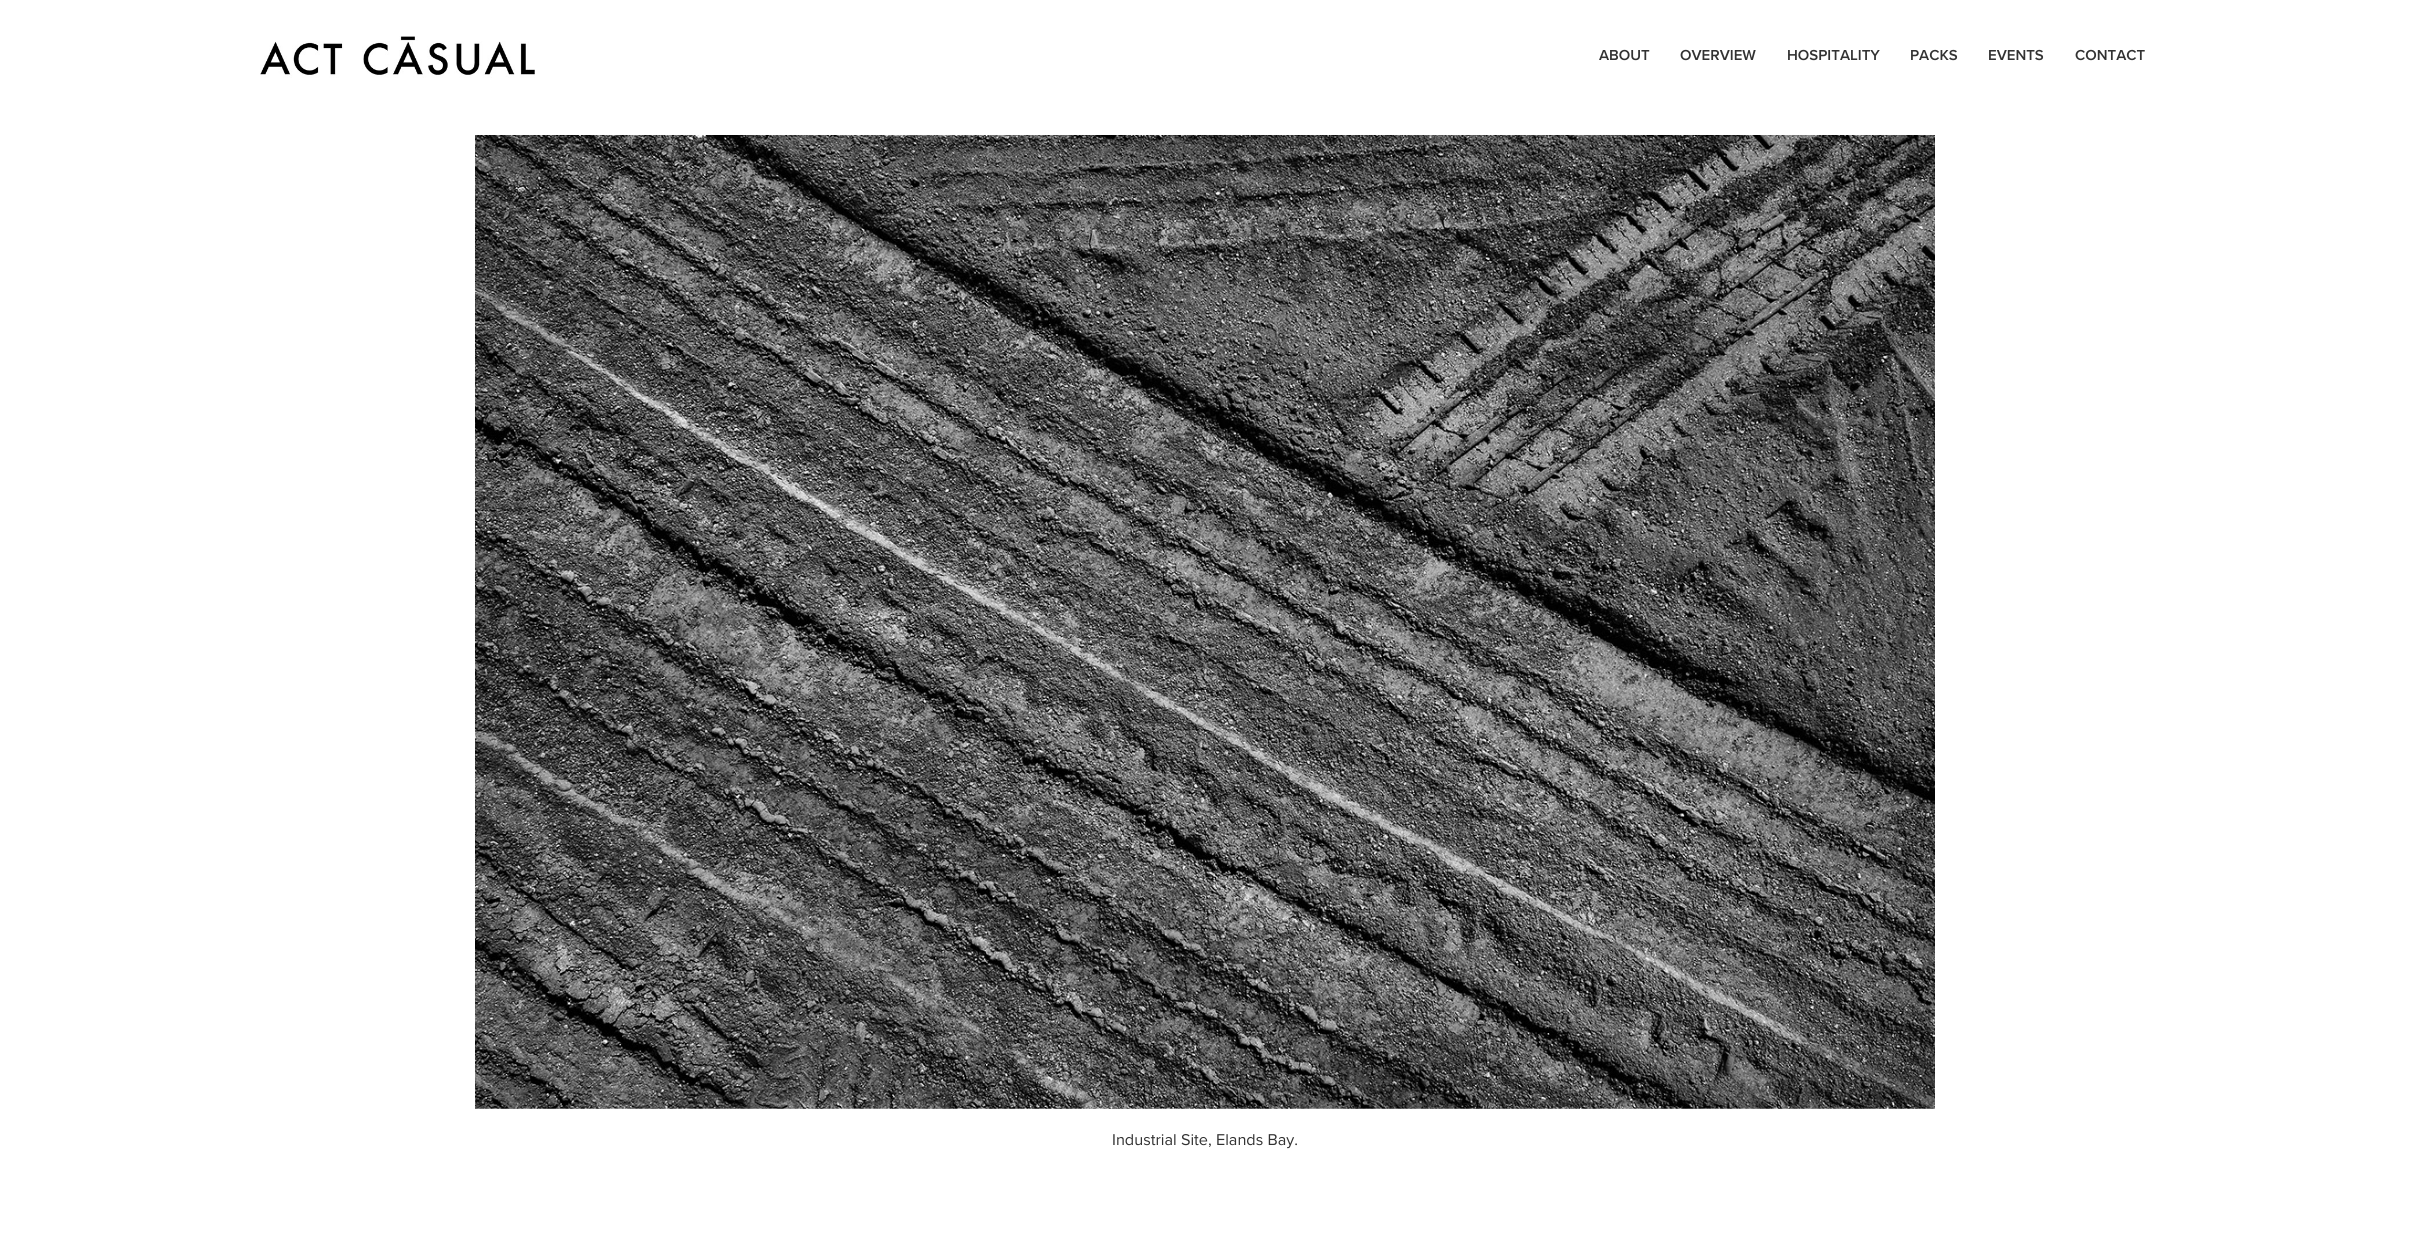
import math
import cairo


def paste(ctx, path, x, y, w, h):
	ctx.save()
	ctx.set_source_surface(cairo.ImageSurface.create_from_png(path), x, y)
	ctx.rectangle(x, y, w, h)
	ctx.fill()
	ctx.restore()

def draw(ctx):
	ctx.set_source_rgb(1, 1, 1)
	ctx.paint()
	paste(ctx, 'media/1.png', 260, 36, 275, 42)
	ctx.select_font_face('Proxima Nova SemiBold')
	ctx.set_font_size(15)
	ctx.set_source_rgb(0.196, 0.196, 0.196)
	for x, y, s in [
		(1599, 60, 'ABOUT'),
		(1680, 60, 'OVERVIEW'),
		(1787, 60, 'HOSPITALITY'),
		(1910, 60, 'PACKS'),
		(1988, 60, 'EVENTS'),
		(2075, 60, 'CONTACT'),
	]:
		ctx.move_to(x, y)
		ctx.show_text(s)
	paste(ctx, 'media/2.png', 475, 135, 1460, 974)
	ctx.select_font_face('Proxima Nova')
	ctx.set_font_size(16.25)
	ctx.move_to(1112, 1145)
	ctx.show_text('Industrial Site, Elands Bay.')


surface = cairo.ImageSurface(cairo.FORMAT_RGB24, 2410, 1260)
ctx = cairo.Context(surface)
options = cairo.FontOptions()
options.set_hint_metrics(cairo.HINT_METRICS_OFF)
options.set_hint_style(cairo.HINT_STYLE_NONE)
ctx.set_font_options(options)
ctx.set_miter_limit(4)
draw(ctx)
surface.write_to_png('image.png')
